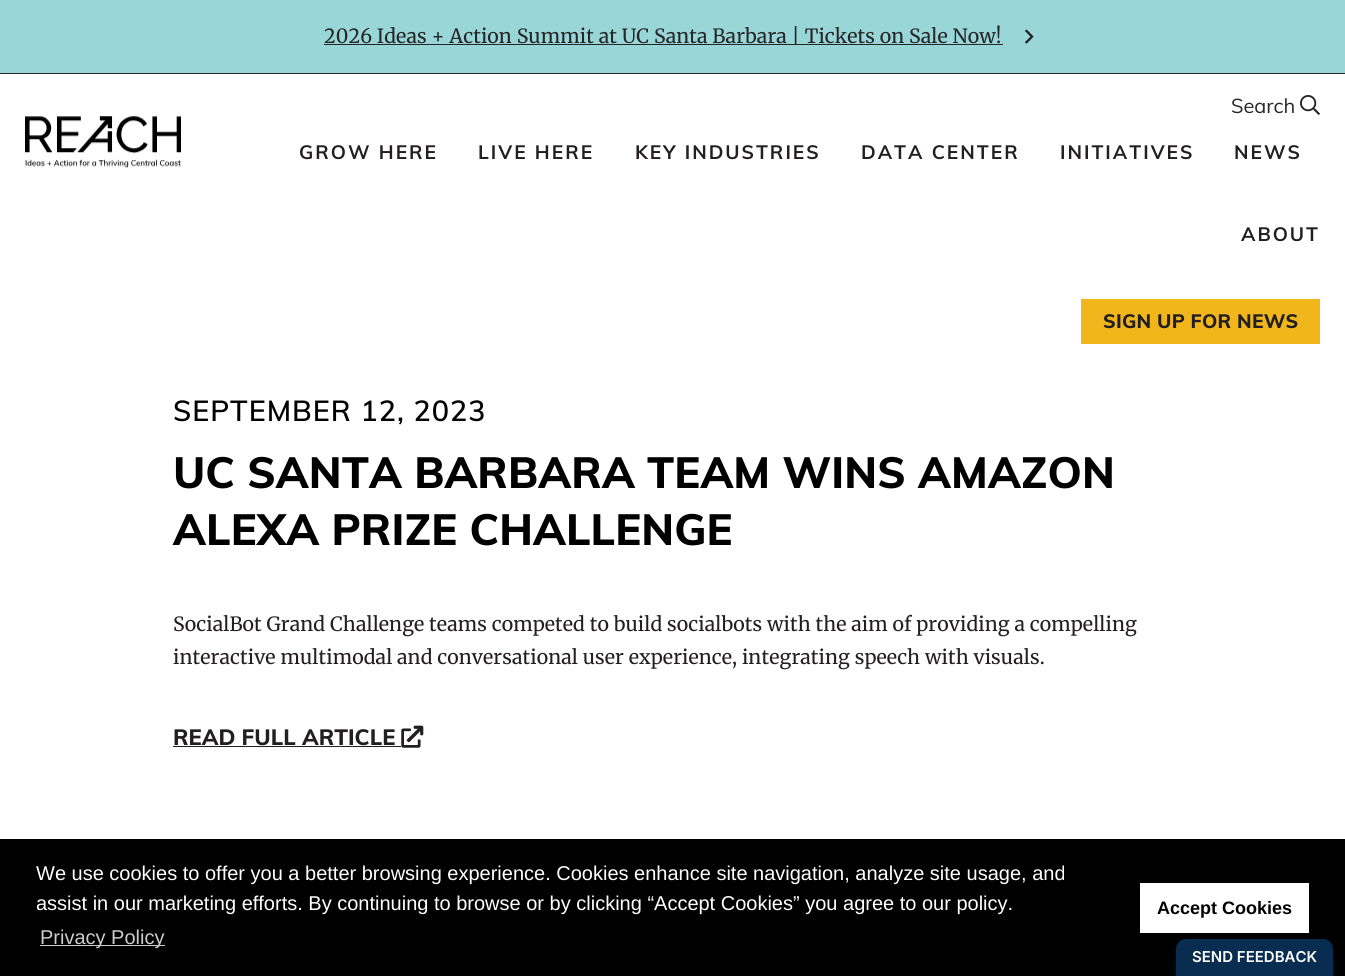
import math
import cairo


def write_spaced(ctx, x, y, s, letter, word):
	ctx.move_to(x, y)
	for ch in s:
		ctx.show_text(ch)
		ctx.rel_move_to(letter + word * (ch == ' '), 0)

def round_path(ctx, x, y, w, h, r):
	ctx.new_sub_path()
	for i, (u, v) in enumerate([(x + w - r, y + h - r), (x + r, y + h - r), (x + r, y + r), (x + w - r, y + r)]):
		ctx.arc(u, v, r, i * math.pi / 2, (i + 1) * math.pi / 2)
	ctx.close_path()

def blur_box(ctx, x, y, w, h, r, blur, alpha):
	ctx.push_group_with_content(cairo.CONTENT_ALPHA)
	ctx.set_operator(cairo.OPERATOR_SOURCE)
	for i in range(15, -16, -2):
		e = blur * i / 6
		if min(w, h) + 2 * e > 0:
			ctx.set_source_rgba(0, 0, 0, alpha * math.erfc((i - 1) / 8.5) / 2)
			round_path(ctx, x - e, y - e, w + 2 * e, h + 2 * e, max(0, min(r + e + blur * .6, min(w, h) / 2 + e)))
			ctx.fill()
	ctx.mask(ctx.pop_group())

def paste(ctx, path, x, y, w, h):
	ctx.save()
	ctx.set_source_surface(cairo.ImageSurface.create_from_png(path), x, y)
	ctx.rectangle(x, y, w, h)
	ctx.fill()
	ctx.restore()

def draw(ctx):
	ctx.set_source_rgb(1, 1, 1)
	ctx.paint()
	ctx.set_source_rgb(0.6, 0.839, 0.843)
	ctx.rectangle(0, 0, 1345, 73)
	ctx.fill()
	ctx.set_source_rgb(0.149, 0.149, 0.149)
	ctx.rectangle(0, 73, 1345, 1)
	ctx.rectangle(324, 44, 679, 1)
	ctx.fill()
	ctx.select_font_face('Merriweather')
	ctx.set_font_size(19.55)
	write_spaced(ctx, 324, 43, '2026 Ideas + Action Summit at UC Santa Barbara | Tickets on Sale Now!', 0.1, 0)
	paste(ctx, 'media/1.png', 1025, 29, 9, 15)
	ctx.select_font_face('Muli')
	ctx.set_font_size(20)
	ctx.move_to(1231, 113)
	ctx.show_text('Search')
	paste(ctx, 'media/2.png', 1300, 95, 20, 20)
	paste(ctx, 'media/3.png', 25, 116, 156, 52)
	ctx.select_font_face('Muli', cairo.FONT_SLANT_NORMAL, cairo.FONT_WEIGHT_BOLD)
	ctx.set_font_size(19.25)
	ctx.set_source_rgb(0.137, 0.122, 0.125)
	for x, y, s in [
		(299, 159, 'GROW HERE'),
		(478, 159, 'LIVE HERE'),
		(635, 159, 'KEY INDUSTRIES'),
		(861, 159, 'DATA CENTER'),
		(1060, 159, 'INITIATIVES'),
		(1234, 159, 'NEWS'),
		(1241, 241, 'ABOUT'),
	]:
		write_spaced(ctx, x, y, s, 2, 0)
	ctx.set_source_rgb(0.941, 0.714, 0.106)
	ctx.rectangle(1081, 299, 239, 45)
	ctx.fill()
	ctx.select_font_face('Muli ExtraBold')
	ctx.set_source_rgb(0.137, 0.122, 0.125)
	write_spaced(ctx, 1103, 328, 'SIGN UP FOR NEWS', 0.25, 0)
	ctx.select_font_face('Muli SemiBold')
	ctx.set_font_size(28.75)
	ctx.set_source_rgb(0, 0, 0)
	write_spaced(ctx, 173, 421, 'SEPTEMBER 12, 2023', 1, 0)
	ctx.select_font_face('Muli ExtraBold')
	ctx.set_font_size(43.25)
	write_spaced(ctx, 173, 488, 'UC SANTA BARBARA TEAM WINS AMAZON', 0.1, 0)
	write_spaced(ctx, 173, 545, 'ALEXA PRIZE CHALLENGE', 0.1, 0)
	ctx.select_font_face('Merriweather')
	ctx.set_font_size(19.55)
	ctx.set_source_rgb(0.137, 0.122, 0.125)
	write_spaced(ctx, 173, 631, 'SocialBot Grand Challenge teams competed to build socialbots with the aim of providing a compelling', 0.1, 0)
	write_spaced(ctx, 173, 664, 'interactive multimodal and conversational user experience, integrating speech with visuals.', 0.1, 0)
	ctx.select_font_face('Muli ExtraBold')
	ctx.set_font_size(22)
	ctx.move_to(173, 745)
	ctx.show_text('READ FULL ARTICLE')
	ctx.rectangle(173, 746, 228, 1)
	ctx.fill()
	paste(ctx, 'media/4.png', 401, 725, 23, 23)
	ctx.set_source_rgb(0, 0, 0)
	ctx.rectangle(0, 839, 1345, 137)
	ctx.fill()
	ctx.select_font_face('Liberation Sans')
	ctx.set_font_size(20)
	ctx.set_source_rgb(1, 1, 1)
	ctx.move_to(36, 880)
	ctx.show_text('We use cookies to offer you a better browsing experience. Cookies enhance site navigation, analyze site usage, and')
	ctx.move_to(36, 910)
	ctx.show_text('assist in our marketing efforts. By continuing to browse or by clicking “Accept Cookies” you agree to our policy.')
	ctx.set_source_rgb(0.8, 0.8, 0.8)
	ctx.rectangle(40, 945, 125, 1)
	ctx.fill()
	ctx.move_to(40, 944)
	ctx.show_text('Privacy Policy')
	ctx.set_source_rgb(1, 1, 1)
	ctx.rectangle(1140, 883, 169, 50)
	ctx.fill()
	ctx.select_font_face('Liberation Sans', cairo.FONT_SLANT_NORMAL, cairo.FONT_WEIGHT_BOLD)
	ctx.set_font_size(18)
	ctx.set_source_rgb(0, 0, 0)
	ctx.move_to(1157, 914)
	ctx.show_text('Accept Cookies')
	ctx.set_source_rgb(0, 0.224, 0.502)
	blur_box(ctx, 1176, 951, 157, 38, 10, 6, 0.2)
	ctx.set_source_rgb(0.039, 0.176, 0.314)
	ctx.new_path()
	ctx.move_to(1186, 939)
	ctx.line_to(1323, 939)
	ctx.curve_to(1328.5, 939, 1333, 943.5, 1333, 949)
	ctx.line_to(1333, 976)
	ctx.line_to(1176, 976)
	ctx.line_to(1176, 949)
	ctx.curve_to(1176, 943.5, 1180.5, 939, 1186, 939)
	ctx.close_path()
	ctx.fill()
	ctx.select_font_face('Inter SemiBold')
	ctx.set_font_size(15)
	ctx.set_source_rgb(1, 1, 1)
	ctx.move_to(1192, 962)
	ctx.show_text('SEND FEEDBACK')


surface = cairo.ImageSurface(cairo.FORMAT_RGB24, 1345, 976)
ctx = cairo.Context(surface)
options = cairo.FontOptions()
options.set_hint_metrics(cairo.HINT_METRICS_OFF)
options.set_hint_style(cairo.HINT_STYLE_NONE)
ctx.set_font_options(options)
ctx.set_miter_limit(4)
draw(ctx)
surface.write_to_png('image.png')
